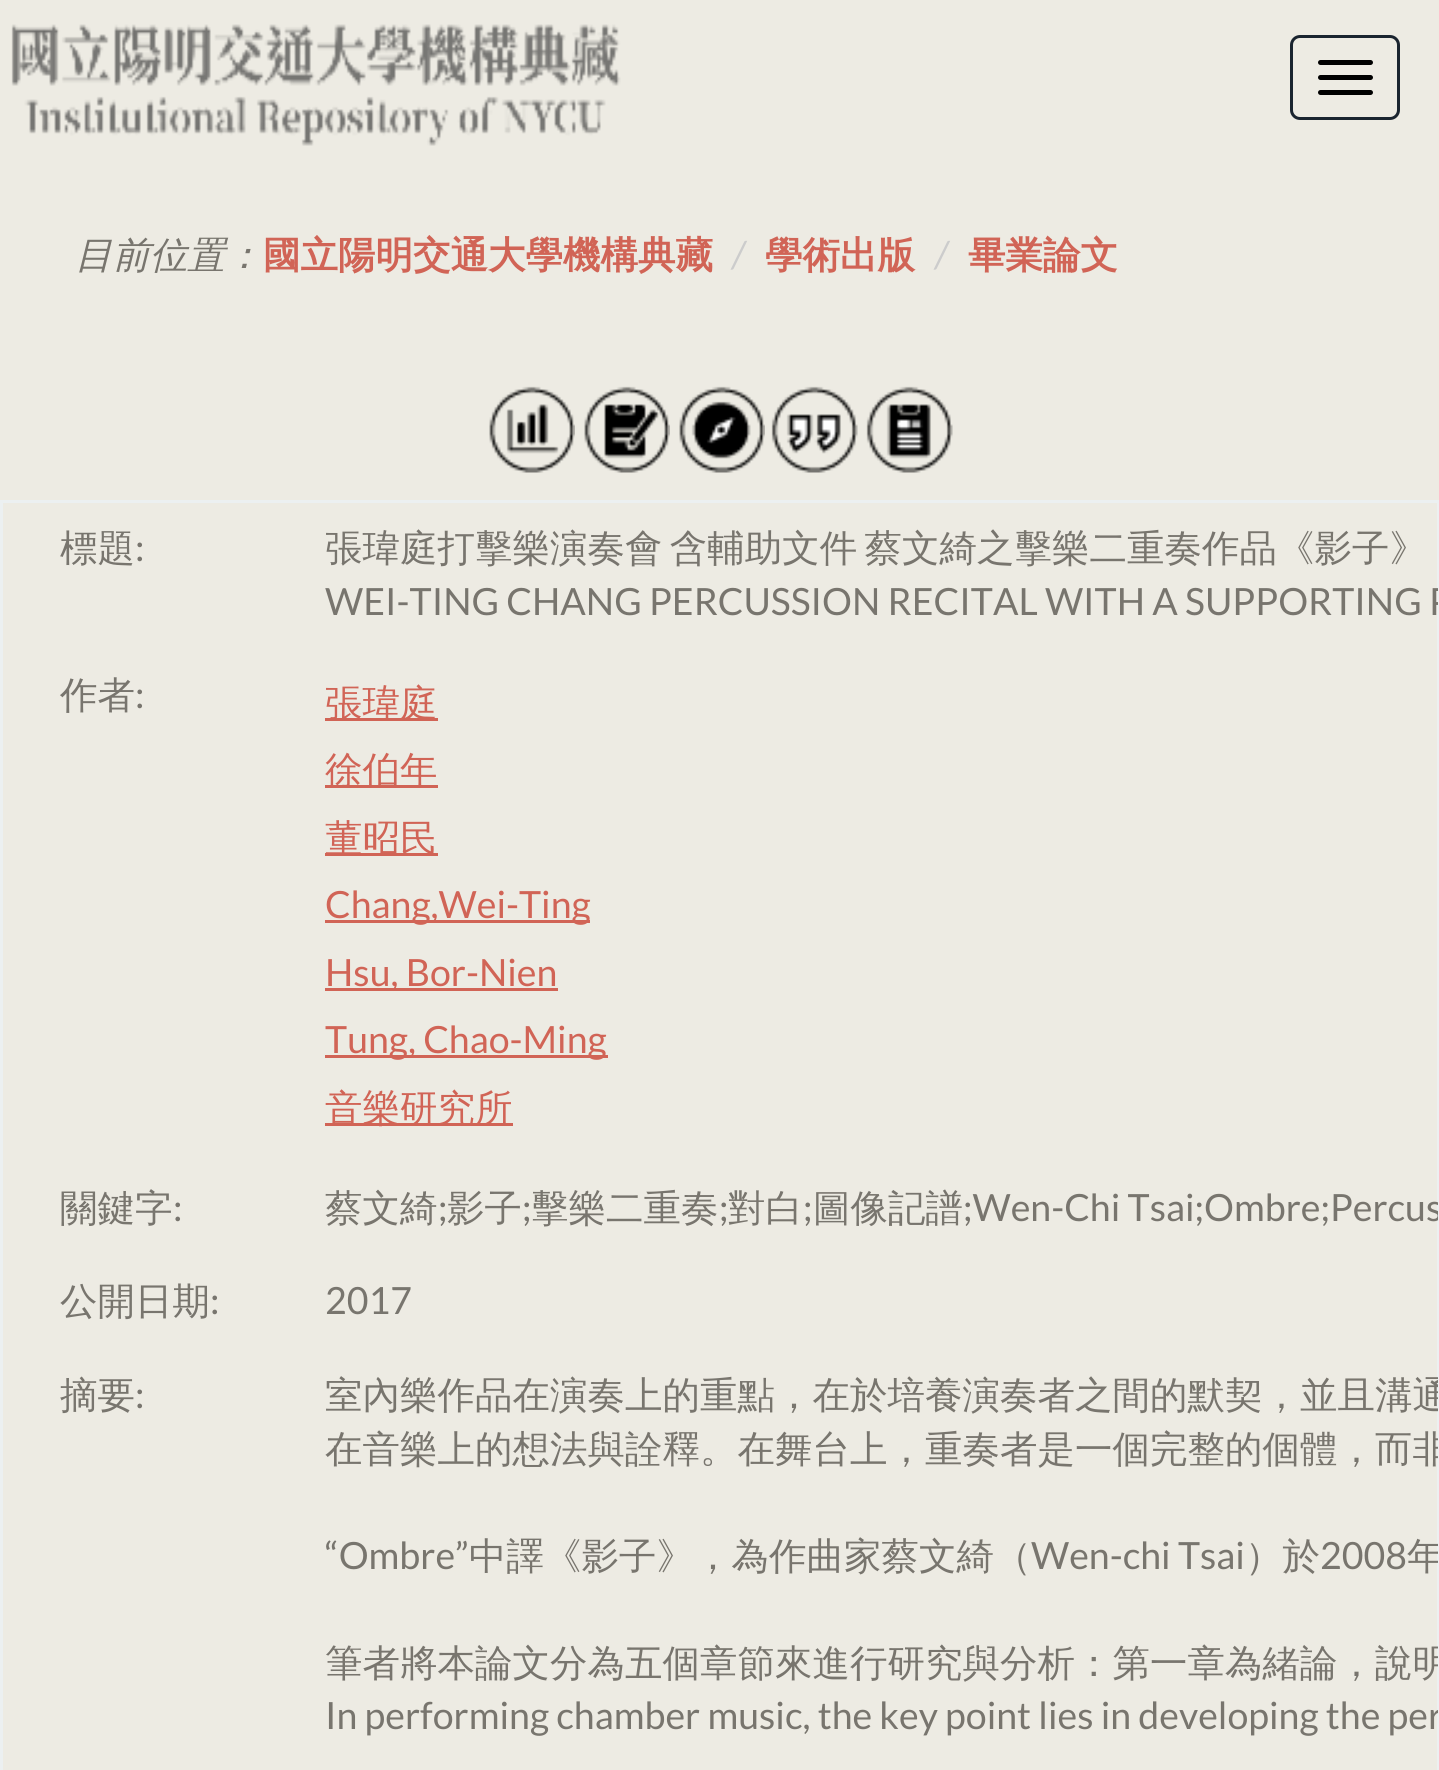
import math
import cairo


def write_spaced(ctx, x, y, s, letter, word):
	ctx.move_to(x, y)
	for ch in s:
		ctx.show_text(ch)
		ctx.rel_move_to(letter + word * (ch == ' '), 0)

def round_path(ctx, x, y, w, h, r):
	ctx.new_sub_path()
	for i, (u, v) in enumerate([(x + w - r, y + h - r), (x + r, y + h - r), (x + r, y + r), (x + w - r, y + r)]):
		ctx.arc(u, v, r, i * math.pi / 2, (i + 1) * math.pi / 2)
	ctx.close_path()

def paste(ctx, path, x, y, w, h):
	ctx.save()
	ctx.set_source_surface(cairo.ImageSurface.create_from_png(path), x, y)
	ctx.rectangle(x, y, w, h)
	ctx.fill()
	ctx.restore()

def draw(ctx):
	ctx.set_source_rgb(0.929, 0.918, 0.89)
	ctx.paint()
	paste(ctx, 'media/1.png', 11, 24, 610, 122)
	round_path(ctx, 1291.5, 36.5, 107, 82, 8.5)
	ctx.set_source_rgb(0.102, 0.141, 0.184)
	ctx.set_line_width(3)
	ctx.stroke()
	ctx.set_source_rgb(0, 0, 0)
	round_path(ctx, 1318, 60, 55, 5, 2.5)
	ctx.fill()
	round_path(ctx, 1318, 75, 55, 5, 2.5)
	ctx.fill()
	round_path(ctx, 1318, 90, 55, 5, 2.5)
	ctx.fill()
	ctx.select_font_face('WenQuanYi Zen Hei Medium', cairo.FONT_SLANT_ITALIC)
	ctx.set_font_size(37.5)
	ctx.set_source_rgb(0.471, 0.459, 0.431)
	ctx.move_to(75, 268)
	ctx.show_text('目前位置：')
	ctx.select_font_face('WenQuanYi Zen Hei', cairo.FONT_SLANT_NORMAL, cairo.FONT_WEIGHT_BOLD)
	ctx.set_source_rgb(0.82, 0.392, 0.337)
	ctx.move_to(263, 268)
	ctx.show_text('國立陽明交通大學機構典藏')
	ctx.select_font_face('Lato', cairo.FONT_SLANT_ITALIC)
	ctx.set_source_rgb(0.8, 0.8, 0.8)
	ctx.move_to(732, 268)
	ctx.show_text('/')
	ctx.select_font_face('WenQuanYi Zen Hei', cairo.FONT_SLANT_NORMAL, cairo.FONT_WEIGHT_BOLD)
	ctx.set_source_rgb(0.82, 0.392, 0.337)
	ctx.move_to(765, 268)
	ctx.show_text('學術出版')
	ctx.select_font_face('Lato', cairo.FONT_SLANT_ITALIC)
	ctx.set_source_rgb(0.8, 0.8, 0.8)
	ctx.move_to(935, 268)
	ctx.show_text('/')
	ctx.select_font_face('WenQuanYi Zen Hei', cairo.FONT_SLANT_NORMAL, cairo.FONT_WEIGHT_BOLD)
	ctx.set_source_rgb(0.82, 0.392, 0.337)
	ctx.move_to(968, 268)
	ctx.show_text('畢業論文')
	paste(ctx, 'media/2.png', 489, 386, 86, 87)
	paste(ctx, 'media/3.png', 584, 386, 86, 87)
	paste(ctx, 'media/4.png', 679, 386, 86, 87)
	paste(ctx, 'media/5.png', 771, 386, 87, 87)
	paste(ctx, 'media/6.png', 866, 386, 87, 87)
	ctx.rectangle(1.5, 501.5, 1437, 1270)
	ctx.set_source_rgb(0.925, 0.941, 0.945)
	ctx.stroke()
	ctx.select_font_face('WenQuanYi Zen Hei Medium')
	ctx.set_source_rgb(0.471, 0.459, 0.431)
	ctx.move_to(60, 561)
	ctx.show_text('標題')
	ctx.select_font_face('Lato')
	ctx.move_to(135, 561)
	ctx.show_text(':')
	ctx.select_font_face('WenQuanYi Zen Hei Medium')
	write_spaced(ctx, 325, 561, '張瑋庭打擊樂演奏會 含輔助文件 蔡⽂綺之擊樂二重奏作品《影⼦》', 0, -4)
	ctx.save()
	ctx.rectangle(3, 503, 1435, 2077)
	ctx.clip()
	ctx.select_font_face('Lato')
	ctx.move_to(325, 615)
	ctx.show_text('WEI-TING CHANG PERCUSSION RECITAL WITH A SUPPORTING P')
	ctx.restore()
	ctx.move_to(60, 708)
	ctx.show_text('作者')
	ctx.select_font_face('Lato')
	ctx.move_to(135, 708)
	ctx.show_text(':')
	ctx.set_source_rgb(0.82, 0.392, 0.337)
	ctx.rectangle(325, 718, 113, 3)
	ctx.fill()
	ctx.select_font_face('WenQuanYi Zen Hei Medium')
	ctx.move_to(325, 716)
	ctx.show_text('張瑋庭')
	ctx.rectangle(325, 785, 113, 3)
	ctx.fill()
	ctx.move_to(325, 783)
	ctx.show_text('徐伯年')
	ctx.rectangle(325, 853, 113, 3)
	ctx.fill()
	ctx.move_to(325, 851)
	ctx.show_text('董昭民')
	ctx.rectangle(325, 920, 265, 3)
	ctx.fill()
	ctx.select_font_face('Lato')
	ctx.move_to(325, 918)
	ctx.show_text('Chang,Wei-Ting')
	ctx.rectangle(325, 988, 233, 3)
	ctx.fill()
	ctx.move_to(325, 986)
	ctx.show_text('Hsu, Bor-Nien')
	ctx.rectangle(325, 1055, 283, 3)
	ctx.fill()
	ctx.move_to(325, 1053)
	ctx.show_text('Tung, Chao-Ming')
	ctx.rectangle(325, 1123, 188, 3)
	ctx.fill()
	ctx.select_font_face('WenQuanYi Zen Hei Medium')
	ctx.move_to(325, 1121)
	ctx.show_text('音樂研究所')
	ctx.set_source_rgb(0.471, 0.459, 0.431)
	ctx.move_to(60, 1221)
	ctx.show_text('關鍵字')
	ctx.select_font_face('Lato')
	ctx.move_to(173, 1221)
	ctx.show_text(':')
	ctx.select_font_face('WenQuanYi Zen Hei Medium')
	ctx.move_to(325, 1221)
	ctx.show_text('蔡⽂綺')
	ctx.select_font_face('Lato')
	ctx.move_to(438, 1221)
	ctx.show_text(';')
	ctx.select_font_face('WenQuanYi Zen Hei Medium')
	ctx.move_to(447, 1221)
	ctx.show_text('影⼦')
	ctx.select_font_face('Lato')
	ctx.move_to(522, 1221)
	ctx.show_text(';')
	ctx.select_font_face('WenQuanYi Zen Hei Medium')
	ctx.move_to(531, 1221)
	ctx.show_text('擊樂⼆重奏')
	ctx.select_font_face('Lato')
	ctx.move_to(719, 1221)
	ctx.show_text(';')
	ctx.select_font_face('WenQuanYi Zen Hei Medium')
	ctx.move_to(728, 1221)
	ctx.show_text('對⽩')
	ctx.select_font_face('Lato')
	ctx.move_to(803, 1221)
	ctx.show_text(';')
	ctx.select_font_face('WenQuanYi Zen Hei Medium')
	ctx.move_to(813, 1221)
	ctx.show_text('圖像記譜')
	ctx.save()
	ctx.rectangle(3, 503, 1435, 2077)
	ctx.clip()
	ctx.select_font_face('Lato')
	ctx.move_to(963, 1221)
	ctx.show_text(';Wen-Chi Tsai;Ombre;Percus')
	ctx.restore()
	ctx.move_to(60, 1314)
	ctx.show_text('公開日期')
	ctx.select_font_face('Lato')
	ctx.move_to(210, 1314)
	ctx.show_text(':')
	ctx.move_to(325, 1314)
	ctx.show_text('2017')
	ctx.select_font_face('WenQuanYi Zen Hei Medium')
	ctx.move_to(60, 1408)
	ctx.show_text('摘要')
	ctx.select_font_face('Lato')
	ctx.move_to(135, 1408)
	ctx.show_text(':')
	ctx.save()
	ctx.rectangle(3, 503, 1435, 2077)
	ctx.clip()
	ctx.select_font_face('WenQuanYi Zen Hei Medium')
	ctx.move_to(325, 1408)
	ctx.show_text('室內樂作品在演奏上的重點，在於培養演奏者之間的默契，並且溝通')
	ctx.move_to(325, 1462)
	ctx.show_text('在音樂上的想法與詮釋。在舞台上，重奏者是⼀個完整的個體，⽽非')
	ctx.restore()
	ctx.move_to(325, 1569)
	ctx.show_text('“Ombre”')
	ctx.select_font_face('WenQuanYi Zen Hei Medium')
	ctx.move_to(469, 1569)
	ctx.show_text('中譯《影⼦》，為作曲家蔡⽂綺（')
	ctx.select_font_face('Lato')
	ctx.move_to(1031, 1569)
	ctx.show_text('Wen-chi Tsai')
	ctx.select_font_face('WenQuanYi Zen Hei Medium')
	ctx.move_to(1245, 1569)
	ctx.show_text('）於')
	ctx.select_font_face('Lato')
	ctx.move_to(1320, 1569)
	ctx.show_text('2008')
	ctx.save()
	ctx.rectangle(3, 503, 1435, 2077)
	ctx.clip()
	ctx.select_font_face('WenQuanYi Zen Hei Medium')
	ctx.move_to(1407, 1569)
	ctx.show_text('年')
	ctx.move_to(325, 1676)
	ctx.show_text('筆者將本論文分為五個章節來進行研究與分析：第一章為緒論，說明')
	ctx.select_font_face('Lato')
	ctx.move_to(325, 1729)
	ctx.show_text('In performing chamber music, the key point lies in developing the per')
	ctx.restore()


surface = cairo.ImageSurface(cairo.FORMAT_RGB24, 1439, 1770)
ctx = cairo.Context(surface)
options = cairo.FontOptions()
options.set_hint_metrics(cairo.HINT_METRICS_OFF)
options.set_hint_style(cairo.HINT_STYLE_NONE)
ctx.set_font_options(options)
ctx.set_miter_limit(4)
draw(ctx)
surface.write_to_png('image.png')
